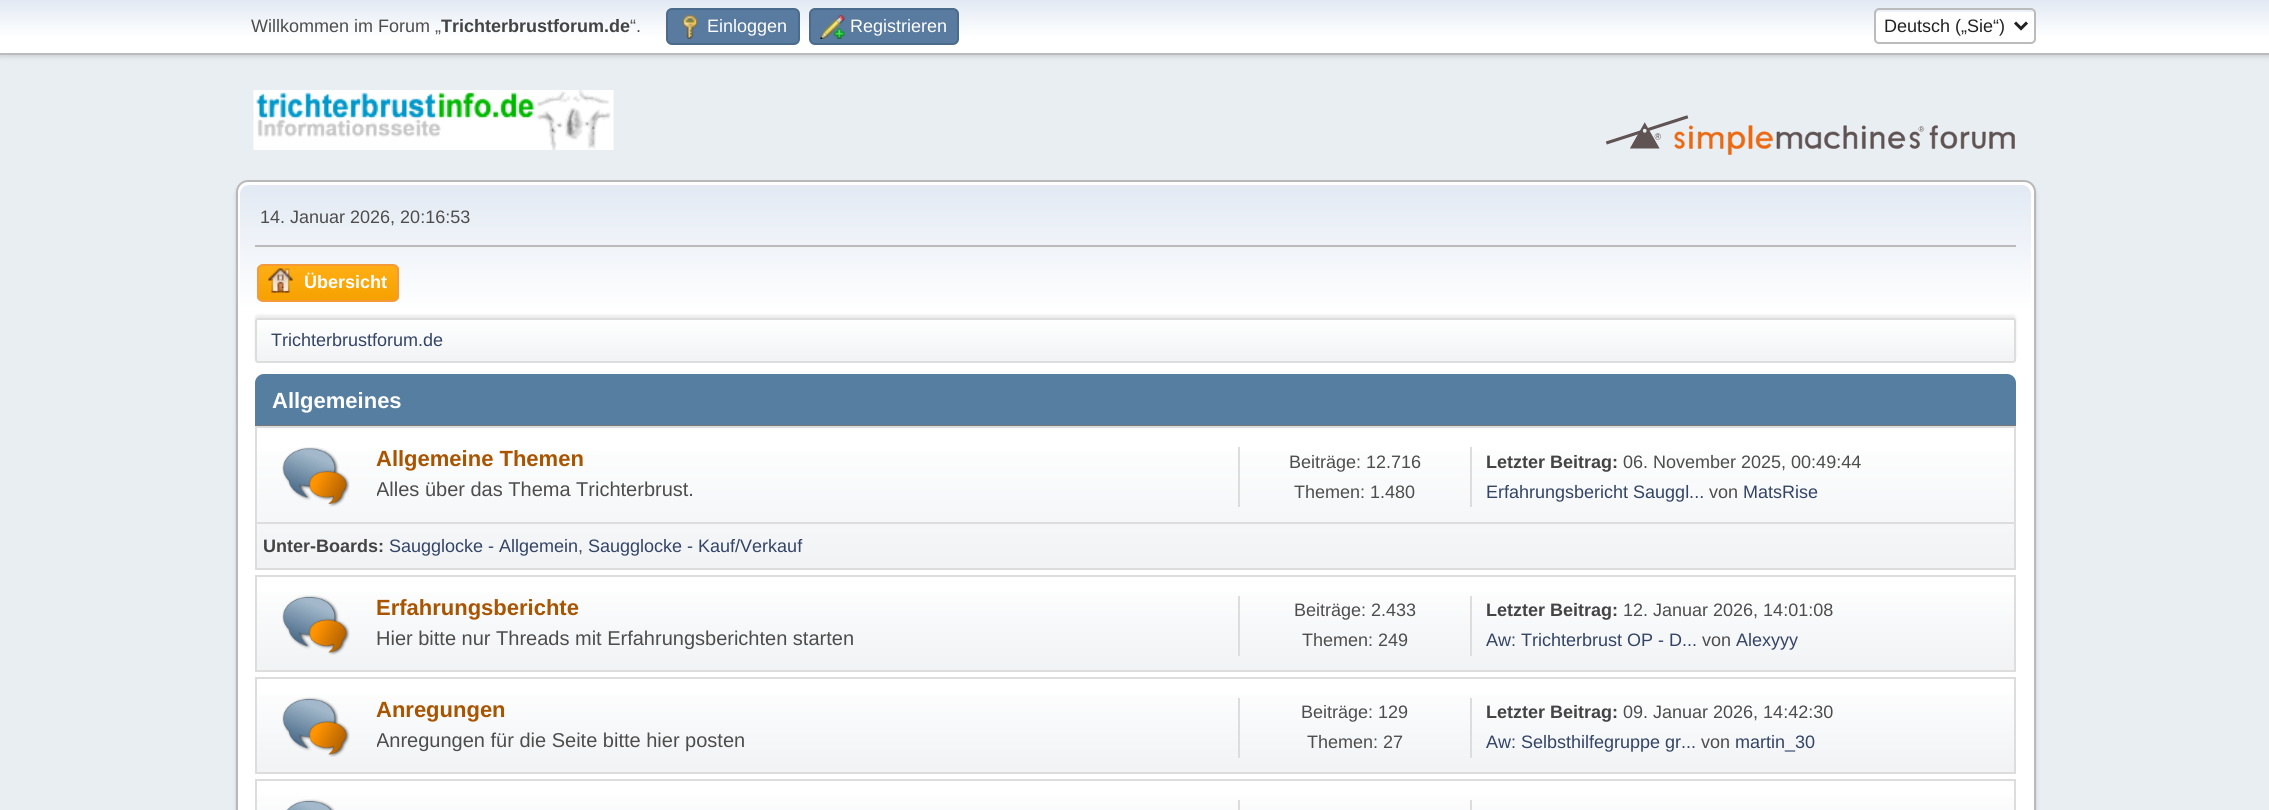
import math
import cairo


def round_path(ctx, x, y, w, h, r):
	ctx.new_sub_path()
	for i, (u, v) in enumerate([(x + w - r, y + h - r), (x + r, y + h - r), (x + r, y + r), (x + w - r, y + r)]):
		ctx.arc(u, v, r, i * math.pi / 2, (i + 1) * math.pi / 2)
	ctx.close_path()

def blur_box(ctx, x, y, w, h, r, blur, alpha):
	ctx.push_group_with_content(cairo.CONTENT_ALPHA)
	ctx.set_operator(cairo.OPERATOR_SOURCE)
	for i in range(15, -16, -2):
		e = blur * i / 6
		if min(w, h) + 2 * e > 0:
			ctx.set_source_rgba(0, 0, 0, alpha * math.erfc((i - 1) / 8.5) / 2)
			round_path(ctx, x - e, y - e, w + 2 * e, h + 2 * e, max(0, min(r + e + blur * .6, min(w, h) / 2 + e)))
			ctx.fill()
	ctx.mask(ctx.pop_group())

def paste(ctx, path, x, y, w, h):
	ctx.save()
	ctx.set_source_surface(cairo.ImageSurface.create_from_png(path), x, y)
	ctx.rectangle(x, y, w, h)
	ctx.fill()
	ctx.restore()

def draw(ctx):
	ctx.set_source_rgb(0.914, 0.933, 0.949)
	ctx.paint()
	ctx.set_source_rgb(0, 0, 0)
	blur_box(ctx, 0, 2, 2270, 54, 0, 3, 0.16)
	gradient = cairo.LinearGradient(1135, 0, 1135, 53)
	gradient.add_color_stop_rgba(0, 0.886, 0.914, 0.953, 1)
	gradient.add_color_stop_rgba(0.7, 1, 1, 1, 1)
	ctx.set_source(gradient)
	ctx.rectangle(0, 0, 2269, 53)
	ctx.fill()
	ctx.set_source_rgb(0.733, 0.733, 0.733)
	ctx.rectangle(0, 53, 2269, 2)
	ctx.fill()
	ctx.select_font_face('Liberation Sans')
	ctx.set_font_size(18)
	ctx.set_source_rgb(0.302, 0.302, 0.302)
	ctx.move_to(251, 32)
	ctx.show_text('Willkommen im Forum „')
	ctx.select_font_face('Liberation Sans', cairo.FONT_SLANT_NORMAL, cairo.FONT_WEIGHT_BOLD)
	ctx.set_source_rgb(0.267, 0.267, 0.267)
	ctx.move_to(441, 32)
	ctx.show_text('Trichterbrustforum.de')
	ctx.select_font_face('Liberation Sans')
	ctx.set_source_rgb(0.302, 0.302, 0.302)
	ctx.move_to(630, 32)
	ctx.show_text('“.')
	ctx.set_source_rgb(0.349, 0.482, 0.624)
	round_path(ctx, 667, 9, 132, 35, 5)
	ctx.fill_preserve()
	ctx.set_source_rgb(0.29, 0.42, 0.549)
	ctx.stroke()
	paste(ctx, 'media/1.png', 682, 15, 16, 24)
	ctx.set_source_rgb(1, 1, 1)
	ctx.move_to(707, 32)
	ctx.show_text('Einloggen')
	ctx.set_source_rgb(0.349, 0.482, 0.624)
	round_path(ctx, 810, 9, 148, 35, 5)
	ctx.fill_preserve()
	ctx.set_source_rgb(0.29, 0.42, 0.549)
	ctx.stroke()
	paste(ctx, 'media/2.png', 820, 15, 25, 24)
	ctx.set_source_rgb(1, 1, 1)
	ctx.move_to(850, 32)
	ctx.show_text('Registrieren')
	round_path(ctx, 1874, 8, 162, 36, 5)
	ctx.fill()
	ctx.set_source_rgb(0.925, 0.945, 0.973)
	ctx.new_path()
	ctx.move_to(1880, 12)
	ctx.line_to(2034, 12)
	ctx.curve_to(2034, 10, 2033, 9, 2031, 9)
	ctx.line_to(1878, 9)
	ctx.curve_to(1876, 9, 1875, 10, 1875, 12)
	ctx.line_to(1875, 39)
	ctx.curve_to(1875, 40, 1875, 41, 1876, 41)
	ctx.line_to(1876, 15)
	ctx.curve_to(1876, 13, 1878, 12, 1880, 12)
	ctx.close_path()
	ctx.fill()
	round_path(ctx, 1875, 9, 160, 34, 4)
	ctx.set_source_rgb(0.733, 0.733, 0.733)
	ctx.stroke()
	ctx.new_path()
	ctx.move_to(2015, 22.5)
	ctx.line_to(2021, 28.5)
	ctx.line_to(2027, 22.5)
	ctx.set_source_rgb(0.133, 0.133, 0.133)
	ctx.set_line_width(3)
	ctx.stroke()
	ctx.move_to(1884, 32)
	ctx.show_text('Deutsch („Sie“)')
	paste(ctx, 'media/3.png', 253, 90, 361, 60)
	paste(ctx, 'media/4.png', 1605, 115, 410, 41)
	ctx.set_source_rgb(0, 0, 0)
	blur_box(ctx, 236, 183, 1800, 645, 12, 2, 0.14)
	ctx.set_source_rgb(1, 1, 1)
	round_path(ctx, 237, 181, 1798, 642, 11)
	ctx.fill_preserve()
	ctx.set_source_rgb(0.722, 0.722, 0.722)
	ctx.set_line_width(2)
	ctx.stroke()
	gradient = cairo.LinearGradient(1136, 184, 1136, 366)
	gradient.add_color_stop_rgba(0, 0.886, 0.914, 0.953, 1)
	gradient.add_color_stop_rgba(0.7, 1, 1, 1, 1)
	ctx.set_source(gradient)
	ctx.new_path()
	ctx.move_to(249, 185)
	ctx.line_to(2022, 185)
	ctx.curve_to(2027, 185, 2031, 189, 2031, 194)
	ctx.line_to(2031, 366)
	ctx.line_to(240, 366)
	ctx.line_to(240, 194)
	ctx.curve_to(240, 189, 244, 185, 249, 185)
	ctx.close_path()
	ctx.fill()
	ctx.set_source_rgb(0.733, 0.733, 0.733)
	ctx.rectangle(255, 245, 1761, 2)
	ctx.fill()
	ctx.set_source_rgb(0.302, 0.302, 0.302)
	ctx.move_to(260, 223)
	ctx.show_text('14. Januar 2026, 20:16:53')
	ctx.save()
	round_path(ctx, 257, 264, 142, 38, 6)
	ctx.clip()
	gradient = cairo.LinearGradient(328, 266, 328, 300)
	gradient.add_color_stop_rgba(0, 1, 0.682, 0.078, 1)
	gradient.add_color_stop_rgba(1, 0.961, 0.631, 0, 1)
	ctx.set_source(gradient)
	ctx.rectangle(257, 266, 142, 34)
	ctx.fill()
	ctx.restore()
	round_path(ctx, 258, 265, 140, 36, 5)
	ctx.set_source_rgb(0.957, 0.604, 0.227)
	ctx.stroke()
	paste(ctx, 'media/5.png', 268, 268, 25, 25)
	ctx.select_font_face('Liberation Sans', cairo.FONT_SLANT_NORMAL, cairo.FONT_WEIGHT_BOLD)
	ctx.set_source_rgb(1, 1, 1)
	ctx.move_to(304, 288)
	ctx.show_text('Übersicht')
	ctx.set_source_rgb(0, 0, 0)
	blur_box(ctx, 255, 315, 1761, 45, 3, 1.5, 0.08)
	ctx.save()
	round_path(ctx, 255, 318, 1761, 45, 3)
	ctx.clip()
	gradient = cairo.LinearGradient(1136, 319, 1136, 362)
	gradient.add_color_stop_rgba(0, 1, 1, 1, 1)
	gradient.add_color_stop_rgba(0.95, 0.945, 0.953, 0.961, 1)
	ctx.set_source(gradient)
	ctx.rectangle(255, 320, 1761, 42)
	ctx.fill()
	ctx.restore()
	round_path(ctx, 256, 319, 1759, 43, 2)
	ctx.set_source_rgb(0.867, 0.867, 0.867)
	ctx.stroke()
	ctx.select_font_face('Liberation Sans')
	ctx.set_source_rgb(0.2, 0.267, 0.4)
	ctx.move_to(271, 346)
	ctx.show_text('Trichterbrustforum.de')
	ctx.set_source_rgb(0.333, 0.494, 0.627)
	ctx.new_path()
	ctx.move_to(264, 374)
	ctx.line_to(2007, 374)
	ctx.curve_to(2012, 374, 2016, 378, 2016, 383)
	ctx.line_to(2016, 426)
	ctx.line_to(255, 426)
	ctx.line_to(255, 383)
	ctx.curve_to(255, 378, 259, 374, 264, 374)
	ctx.close_path()
	ctx.fill()
	ctx.set_source_rgb(0.467, 0.467, 0.467)
	ctx.rectangle(255, 425, 1761, 1)
	ctx.fill()
	ctx.select_font_face('Liberation Sans', cairo.FONT_SLANT_NORMAL, cairo.FONT_WEIGHT_BOLD)
	ctx.set_font_size(22)
	ctx.set_source_rgb(1, 1, 1)
	ctx.move_to(272, 408)
	ctx.show_text('Allgemeines')
	gradient = cairo.LinearGradient(1136, 427, 1136, 569)
	gradient.add_color_stop_rgba(0, 1, 1, 1, 1)
	gradient.add_color_stop_rgba(0.95, 0.945, 0.953, 0.961, 1)
	ctx.set_source(gradient)
	ctx.rectangle(257, 451, 1757, 117)
	ctx.fill()
	ctx.rectangle(256, 427, 1759, 142)
	ctx.set_source_rgb(0.867, 0.867, 0.867)
	ctx.stroke()
	paste(ctx, 'media/6.png', 282, 447, 68, 60)
	ctx.set_source_rgb(0.659, 0.329, 0)
	ctx.move_to(376, 466)
	ctx.show_text('Allgemeine Themen')
	ctx.save()
	ctx.rectangle(377, 437, 846, 76)
	ctx.clip()
	ctx.select_font_face('Liberation Sans')
	ctx.set_font_size(20)
	ctx.set_source_rgb(0.302, 0.302, 0.302)
	ctx.move_to(376, 496)
	ctx.show_text('Alles über das Thema Trichterbrust.')
	ctx.restore()
	ctx.set_source_rgb(0.867, 0.867, 0.867)
	ctx.rectangle(1470, 447, 2, 60)
	ctx.fill()
	ctx.rectangle(1238, 447, 2, 60)
	ctx.fill()
	ctx.select_font_face('Liberation Sans')
	ctx.set_font_size(18)
	ctx.set_source_rgb(0.302, 0.302, 0.302)
	ctx.move_to(1289, 468)
	ctx.show_text('Beiträge: 12.716')
	ctx.move_to(1294, 498)
	ctx.show_text('Themen: 1.480')
	ctx.select_font_face('Liberation Sans', cairo.FONT_SLANT_NORMAL, cairo.FONT_WEIGHT_BOLD)
	ctx.set_source_rgb(0.267, 0.267, 0.267)
	ctx.move_to(1486, 468)
	ctx.show_text('Letzter Beitrag:')
	ctx.select_font_face('Liberation Sans')
	ctx.set_source_rgb(0.302, 0.302, 0.302)
	ctx.move_to(1623, 468)
	ctx.show_text('06. November 2025, 00:49:44')
	ctx.set_source_rgb(0.2, 0.267, 0.4)
	ctx.move_to(1486, 498)
	ctx.show_text('Erfahrungsbericht Sauggl...')
	ctx.set_source_rgb(0.302, 0.302, 0.302)
	ctx.move_to(1709, 498)
	ctx.show_text('von')
	ctx.set_source_rgb(0.2, 0.267, 0.4)
	ctx.move_to(1743, 498)
	ctx.show_text('MatsRise')
	ctx.set_source_rgb(0.867, 0.867, 0.867)
	ctx.rectangle(257, 522, 1758, 2)
	ctx.fill()
	ctx.select_font_face('Liberation Sans', cairo.FONT_SLANT_NORMAL, cairo.FONT_WEIGHT_BOLD)
	ctx.set_source_rgb(0.267, 0.267, 0.267)
	ctx.move_to(263, 552)
	ctx.show_text('Unter-Boards:')
	ctx.select_font_face('Liberation Sans')
	ctx.set_source_rgb(0.2, 0.267, 0.4)
	ctx.move_to(389, 552)
	ctx.show_text('Saugglocke - Allgemein')
	ctx.set_source_rgb(0.302, 0.302, 0.302)
	ctx.move_to(578, 552)
	ctx.show_text(',')
	ctx.set_source_rgb(0.2, 0.267, 0.4)
	ctx.move_to(588, 552)
	ctx.show_text('Saugglocke - Kauf/Verkauf')
	gradient = cairo.LinearGradient(1136, 576, 1136, 671)
	gradient.add_color_stop_rgba(0, 1, 1, 1, 1)
	gradient.add_color_stop_rgba(0.95, 0.945, 0.953, 0.961, 1)
	ctx.set_source(gradient)
	ctx.rectangle(257, 592, 1757, 78)
	ctx.fill()
	ctx.rectangle(256, 576, 1759, 95)
	ctx.set_source_rgb(0.867, 0.867, 0.867)
	ctx.stroke()
	paste(ctx, 'media/7.png', 282, 595, 68, 60)
	ctx.select_font_face('Liberation Sans', cairo.FONT_SLANT_NORMAL, cairo.FONT_WEIGHT_BOLD)
	ctx.set_font_size(22)
	ctx.set_source_rgb(0.659, 0.329, 0)
	ctx.move_to(376, 615)
	ctx.show_text('Erfahrungsberichte')
	ctx.select_font_face('Liberation Sans')
	ctx.set_font_size(20)
	ctx.set_source_rgb(0.302, 0.302, 0.302)
	ctx.move_to(376, 645)
	ctx.show_text('Hier bitte nur Threads mit Erfahrungsberichten starten')
	ctx.set_source_rgb(0.867, 0.867, 0.867)
	ctx.rectangle(1470, 596, 2, 60)
	ctx.fill()
	ctx.rectangle(1238, 596, 2, 60)
	ctx.fill()
	ctx.set_font_size(18)
	ctx.set_source_rgb(0.302, 0.302, 0.302)
	ctx.move_to(1294, 616)
	ctx.show_text('Beiträge: 2.433')
	ctx.move_to(1302, 646)
	ctx.show_text('Themen: 249')
	ctx.select_font_face('Liberation Sans', cairo.FONT_SLANT_NORMAL, cairo.FONT_WEIGHT_BOLD)
	ctx.set_source_rgb(0.267, 0.267, 0.267)
	ctx.move_to(1486, 616)
	ctx.show_text('Letzter Beitrag:')
	ctx.select_font_face('Liberation Sans')
	ctx.set_source_rgb(0.302, 0.302, 0.302)
	ctx.move_to(1623, 616)
	ctx.show_text('12. Januar 2026, 14:01:08')
	ctx.set_source_rgb(0.2, 0.267, 0.4)
	ctx.move_to(1486, 646)
	ctx.show_text('Aw: Trichterbrust OP - D...')
	ctx.set_source_rgb(0.302, 0.302, 0.302)
	ctx.move_to(1702, 646)
	ctx.show_text('von')
	ctx.set_source_rgb(0.2, 0.267, 0.4)
	ctx.move_to(1736, 646)
	ctx.show_text('Alexyyy')
	gradient = cairo.LinearGradient(1136, 678, 1136, 773)
	gradient.add_color_stop_rgba(0, 1, 1, 1, 1)
	gradient.add_color_stop_rgba(0.95, 0.945, 0.953, 0.961, 1)
	ctx.set_source(gradient)
	ctx.rectangle(257, 694, 1757, 78)
	ctx.fill()
	ctx.rectangle(256, 678, 1759, 95)
	ctx.set_source_rgb(0.867, 0.867, 0.867)
	ctx.stroke()
	paste(ctx, 'media/7.png', 282, 697, 68, 60)
	ctx.select_font_face('Liberation Sans', cairo.FONT_SLANT_NORMAL, cairo.FONT_WEIGHT_BOLD)
	ctx.set_font_size(22)
	ctx.set_source_rgb(0.659, 0.329, 0)
	ctx.move_to(376, 717)
	ctx.show_text('Anregungen')
	ctx.save()
	ctx.rectangle(377, 687, 846, 77)
	ctx.clip()
	ctx.select_font_face('Liberation Sans')
	ctx.set_font_size(20)
	ctx.set_source_rgb(0.302, 0.302, 0.302)
	ctx.move_to(376, 747)
	ctx.show_text('Anregungen für die Seite bitte hier posten')
	ctx.restore()
	ctx.set_source_rgb(0.867, 0.867, 0.867)
	ctx.rectangle(1470, 698, 2, 60)
	ctx.fill()
	ctx.rectangle(1238, 698, 2, 60)
	ctx.fill()
	ctx.select_font_face('Liberation Sans')
	ctx.set_font_size(18)
	ctx.set_source_rgb(0.302, 0.302, 0.302)
	ctx.move_to(1301, 718)
	ctx.show_text('Beiträge: 129')
	ctx.move_to(1307, 748)
	ctx.show_text('Themen: 27')
	ctx.select_font_face('Liberation Sans', cairo.FONT_SLANT_NORMAL, cairo.FONT_WEIGHT_BOLD)
	ctx.set_source_rgb(0.267, 0.267, 0.267)
	ctx.move_to(1486, 718)
	ctx.show_text('Letzter Beitrag:')
	ctx.select_font_face('Liberation Sans')
	ctx.set_source_rgb(0.302, 0.302, 0.302)
	ctx.move_to(1623, 718)
	ctx.show_text('09. Januar 2026, 14:42:30')
	ctx.set_source_rgb(0.2, 0.267, 0.4)
	ctx.move_to(1486, 748)
	ctx.show_text('Aw: Selbsthilfegruppe gr...')
	ctx.set_source_rgb(0.302, 0.302, 0.302)
	ctx.move_to(1701, 748)
	ctx.show_text('von')
	ctx.set_source_rgb(0.2, 0.267, 0.4)
	ctx.move_to(1735, 748)
	ctx.show_text('martin_30')
	gradient = cairo.LinearGradient(1136, 780, 1136, 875)
	gradient.add_color_stop_rgba(0, 1, 1, 1, 1)
	gradient.add_color_stop_rgba(0.95, 0.945, 0.953, 0.961, 1)
	ctx.set_source(gradient)
	ctx.rectangle(257, 796, 1757, 14)
	ctx.fill()
	ctx.rectangle(256, 780, 1759, 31)
	ctx.set_source_rgb(0.867, 0.867, 0.867)
	ctx.stroke()
	paste(ctx, 'media/8.png', 286, 799, 49, 11)
	ctx.rectangle(1470, 800, 2, 10)
	ctx.fill()
	ctx.rectangle(1238, 800, 2, 10)
	ctx.fill()


surface = cairo.ImageSurface(cairo.FORMAT_RGB24, 2269, 810)
ctx = cairo.Context(surface)
options = cairo.FontOptions()
options.set_hint_metrics(cairo.HINT_METRICS_OFF)
options.set_hint_style(cairo.HINT_STYLE_NONE)
ctx.set_font_options(options)
ctx.set_miter_limit(4)
draw(ctx)
surface.write_to_png('image.png')
